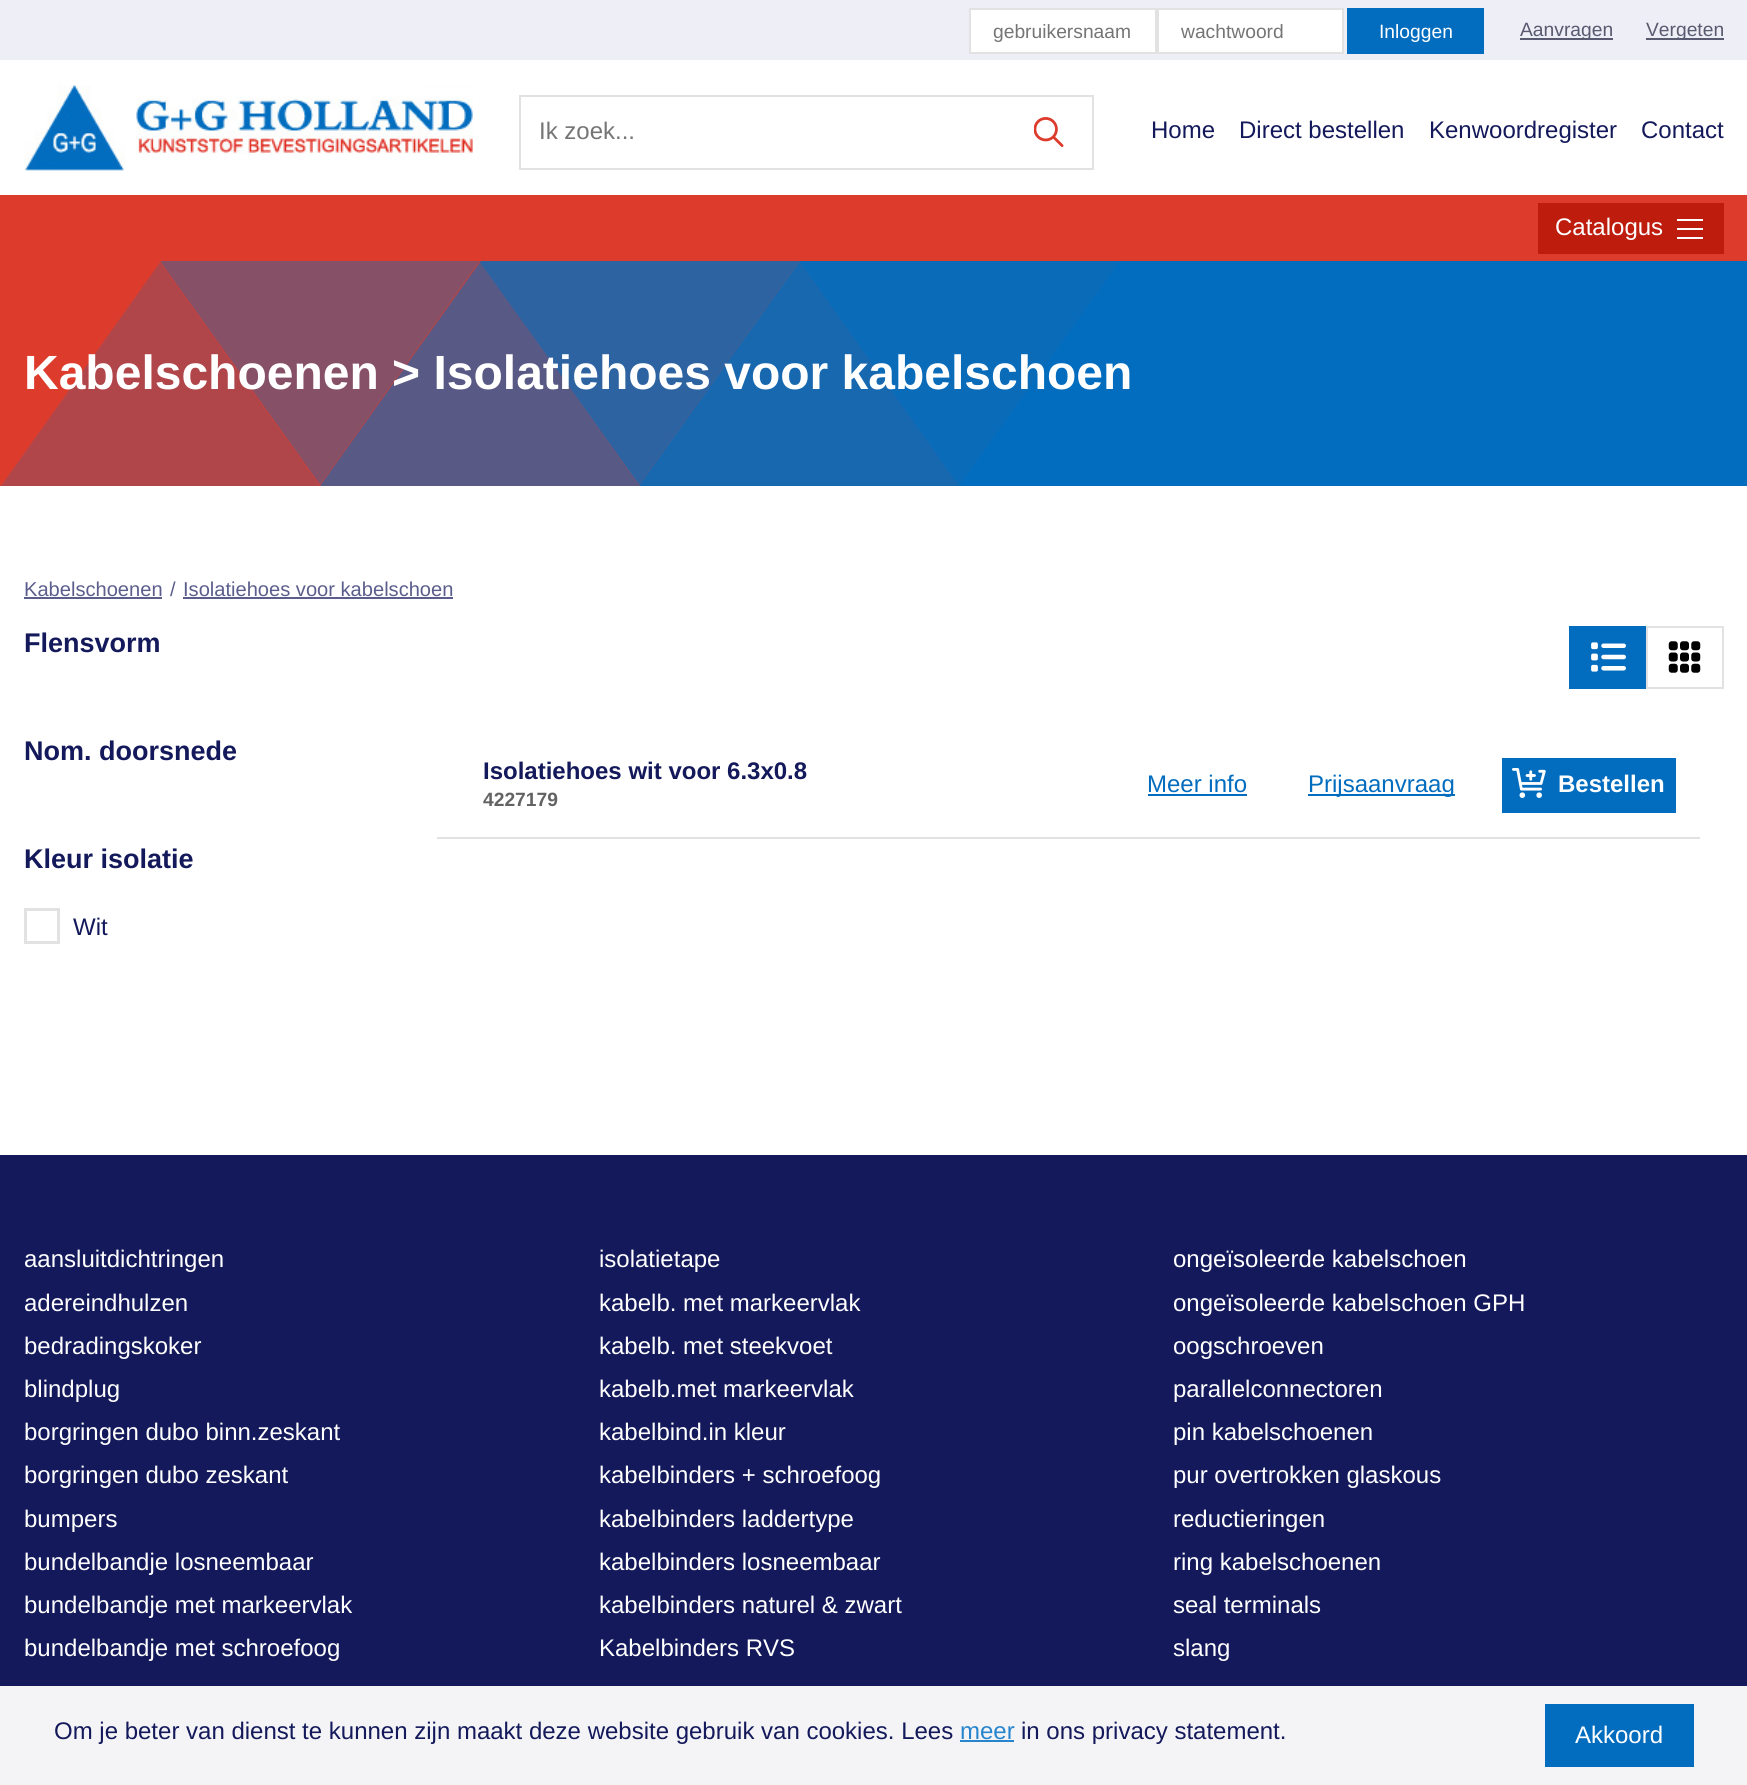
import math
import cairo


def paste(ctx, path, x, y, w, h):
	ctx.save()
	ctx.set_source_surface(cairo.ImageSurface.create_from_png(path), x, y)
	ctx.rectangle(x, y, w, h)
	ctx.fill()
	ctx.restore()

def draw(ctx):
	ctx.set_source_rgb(1, 1, 1)
	ctx.paint()
	ctx.set_source_rgb(0.929, 0.933, 0.961)
	ctx.rectangle(0, 0, 1747, 60)
	ctx.fill()
	ctx.set_source_rgb(1, 1, 1)
	ctx.rectangle(970, 9, 186, 44)
	ctx.fill_preserve()
	ctx.set_source_rgb(0.886, 0.886, 0.886)
	ctx.stroke()
	ctx.select_font_face('Liberation Sans')
	ctx.set_font_size(19.25)
	ctx.set_source_rgb(0.459, 0.459, 0.459)
	ctx.move_to(993, 38)
	ctx.show_text('gebruikersnaam')
	ctx.set_source_rgb(1, 1, 1)
	ctx.rectangle(1158, 9, 185, 44)
	ctx.fill_preserve()
	ctx.set_source_rgb(0.886, 0.886, 0.886)
	ctx.stroke()
	ctx.set_source_rgb(0.459, 0.459, 0.459)
	ctx.move_to(1181, 38)
	ctx.show_text('wachtwoord')
	ctx.set_source_rgb(0.008, 0.427, 0.749)
	ctx.rectangle(1347, 8, 137, 46)
	ctx.fill()
	ctx.set_source_rgb(1, 1, 1)
	ctx.move_to(1379, 38)
	ctx.show_text('Inloggen')
	ctx.set_source_rgb(0.345, 0.353, 0.435)
	ctx.rectangle(1520, 38, 93, 2)
	ctx.fill()
	ctx.move_to(1520, 36)
	ctx.show_text('Aanvragen')
	ctx.rectangle(1646, 38, 78, 2)
	ctx.fill()
	ctx.move_to(1646, 36)
	ctx.show_text('Vergeten')
	paste(ctx, 'media/1.png', 24, 85, 449, 86)
	ctx.rectangle(520, 96, 573, 73)
	ctx.set_source_rgb(0.886, 0.886, 0.886)
	ctx.stroke()
	ctx.set_font_size(24)
	ctx.set_source_rgb(0.459, 0.459, 0.459)
	ctx.move_to(539, 139)
	ctx.show_text('Ik zoek...')
	paste(ctx, 'media/2.png', 1034, 117, 30, 30)
	ctx.set_source_rgb(0.078, 0.098, 0.353)
	for x, y, s in [
		(1151, 138, 'Home'),
		(1239, 138, 'Direct bestellen'),
		(1429, 138, 'Kenwoordregister'),
		(1641, 138, 'Contact'),
	]:
		ctx.move_to(x, y)
		ctx.show_text(s)
	ctx.set_source_rgb(0.867, 0.235, 0.176)
	ctx.rectangle(0, 195, 1747, 66)
	ctx.fill()
	ctx.set_source_rgb(0.745, 0.114, 0.055)
	ctx.rectangle(1538, 203, 186, 51)
	ctx.fill()
	ctx.set_source_rgb(1, 1, 1)
	ctx.move_to(1555, 235)
	ctx.show_text('Catalogus')
	ctx.rectangle(1677, 219, 26, 2)
	ctx.rectangle(1677, 228, 26, 2)
	ctx.rectangle(1677, 237, 26, 2)
	ctx.fill()
	ctx.set_source_rgb(0.008, 0.427, 0.749)
	ctx.rectangle(0, 261, 1747, 225)
	ctx.fill()
	ctx.set_source_rgb(0.18, 0.388, 0.635)
	ctx.new_path()
	ctx.move_to(639, 486)
	ctx.line_to(479, 261)
	ctx.line_to(800, 261)
	ctx.close_path()
	ctx.fill()
	ctx.set_source_rgba(0.867, 0.235, 0.176, 0.6)
	ctx.new_path()
	ctx.move_to(320, 486)
	ctx.line_to(159, 261)
	ctx.line_to(481, 261)
	ctx.close_path()
	ctx.fill()
	ctx.set_source_rgb(0.867, 0.235, 0.176)
	ctx.new_path()
	ctx.move_to(1, 486)
	ctx.line_to(-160, 261)
	ctx.line_to(161, 261)
	ctx.close_path()
	ctx.fill()
	ctx.set_source_rgba(0.867, 0.235, 0.176, 0.04)
	ctx.new_path()
	ctx.move_to(959, 486)
	ctx.line_to(798, 261)
	ctx.line_to(1120, 261)
	ctx.close_path()
	ctx.fill()
	ctx.set_source_rgba(0.867, 0.235, 0.176, 0.1)
	ctx.new_path()
	ctx.move_to(799, 261)
	ctx.line_to(959, 486)
	ctx.line_to(638, 486)
	ctx.close_path()
	ctx.fill()
	ctx.set_source_rgba(0.867, 0.235, 0.176, 0.4)
	ctx.new_path()
	ctx.move_to(479, 261)
	ctx.line_to(640, 486)
	ctx.line_to(319, 486)
	ctx.close_path()
	ctx.fill()
	ctx.set_source_rgba(0.867, 0.235, 0.176, 0.8)
	ctx.new_path()
	ctx.move_to(160, 261)
	ctx.line_to(321, 486)
	ctx.line_to(-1, 486)
	ctx.close_path()
	ctx.fill()
	ctx.select_font_face('Liberation Sans', cairo.FONT_SLANT_NORMAL, cairo.FONT_WEIGHT_BOLD)
	ctx.set_font_size(48)
	ctx.set_source_rgb(1, 1, 1)
	ctx.move_to(24, 389)
	ctx.show_text('Kabelschoenen > Isolatiehoes voor kabelschoen')
	ctx.select_font_face('Liberation Sans')
	ctx.set_font_size(20.1)
	ctx.set_source_rgb(0.357, 0.369, 0.549)
	ctx.move_to(24, 596)
	ctx.show_text('Kabelschoenen')
	ctx.rectangle(24, 597, 138, 2)
	ctx.fill()
	ctx.move_to(170, 596)
	ctx.show_text('/')
	ctx.move_to(183, 596)
	ctx.show_text('Isolatiehoes voor kabelschoen')
	ctx.rectangle(183, 597, 270, 2)
	ctx.fill()
	ctx.select_font_face('Liberation Sans', cairo.FONT_SLANT_NORMAL, cairo.FONT_WEIGHT_BOLD)
	ctx.set_font_size(27)
	ctx.set_source_rgb(0.078, 0.098, 0.353)
	for x, y, s in [
		(24, 652, 'Flensvorm'),
		(24, 760, 'Nom. doorsnede'),
		(24, 868, 'Kleur isolatie'),
	]:
		ctx.move_to(x, y)
		ctx.show_text(s)
	ctx.rectangle(25.5, 909.5, 33, 33)
	ctx.set_source_rgb(0.886, 0.886, 0.886)
	ctx.set_line_width(3)
	ctx.stroke()
	ctx.select_font_face('Liberation Sans')
	ctx.set_font_size(24)
	ctx.set_source_rgb(0.078, 0.098, 0.353)
	ctx.move_to(73, 935)
	ctx.show_text('Wit')
	ctx.set_source_rgb(0.008, 0.427, 0.749)
	ctx.rectangle(1569, 626, 77, 63)
	ctx.fill()
	paste(ctx, 'media/3.png', 1591, 642, 35, 30)
	ctx.rectangle(1647, 627, 76, 61)
	ctx.set_source_rgb(0.886, 0.886, 0.886)
	ctx.set_line_width(2)
	ctx.stroke()
	paste(ctx, 'media/4.png', 1668, 641, 33, 32)
	ctx.rectangle(437, 837, 1263, 2)
	ctx.fill()
	ctx.select_font_face('Liberation Sans', cairo.FONT_SLANT_NORMAL, cairo.FONT_WEIGHT_BOLD)
	ctx.set_source_rgb(0.078, 0.098, 0.353)
	ctx.move_to(483, 779)
	ctx.show_text('Isolatiehoes wit voor 6.3x0.8')
	ctx.set_font_size(19.25)
	ctx.set_source_rgb(0.388, 0.388, 0.388)
	ctx.move_to(483, 806)
	ctx.show_text('4227179')
	ctx.select_font_face('Liberation Sans')
	ctx.set_font_size(24)
	ctx.set_source_rgb(0.008, 0.427, 0.749)
	ctx.move_to(1147, 792)
	ctx.show_text('Meer info')
	ctx.rectangle(1148, 794, 99, 2)
	ctx.fill()
	ctx.rectangle(1308, 794, 147, 2)
	ctx.fill()
	ctx.move_to(1308, 792)
	ctx.show_text('Prijsaanvraag')
	ctx.rectangle(1502, 758, 174, 55)
	ctx.fill()
	paste(ctx, 'media/5.png', 1512, 768, 34, 30)
	ctx.select_font_face('Liberation Sans', cairo.FONT_SLANT_NORMAL, cairo.FONT_WEIGHT_BOLD)
	ctx.set_source_rgb(1, 1, 1)
	ctx.move_to(1558, 792)
	ctx.show_text('Bestellen')
	ctx.set_source_rgb(0.078, 0.098, 0.353)
	ctx.rectangle(0, 1155, 1747, 630)
	ctx.fill()
	ctx.select_font_face('Liberation Sans')
	ctx.set_source_rgb(1, 1, 1)
	for x, y, s in [
		(24, 1267, 'aansluitdichtringen'),
		(599, 1267, 'isolatietape'),
		(1173, 1267, 'ongeïsoleerde kabelschoen'),
		(24, 1311, 'adereindhulzen'),
		(599, 1311, 'kabelb. met markeervlak'),
		(1173, 1311, 'ongeïsoleerde kabelschoen GPH'),
		(24, 1354, 'bedradingskoker'),
		(599, 1354, 'kabelb. met steekvoet'),
		(1173, 1354, 'oogschroeven'),
		(24, 1397, 'blindplug'),
		(599, 1397, 'kabelb.met markeervlak'),
		(1173, 1397, 'parallelconnectoren'),
		(24, 1440, 'borgringen dubo binn.zeskant'),
		(599, 1440, 'kabelbind.in kleur'),
		(1173, 1440, 'pin kabelschoenen'),
		(24, 1483, 'borgringen dubo zeskant'),
		(599, 1483, 'kabelbinders + schroefoog'),
		(1173, 1483, 'pur overtrokken glaskous'),
		(24, 1527, 'bumpers'),
		(599, 1527, 'kabelbinders laddertype'),
		(1173, 1527, 'reductieringen'),
		(24, 1570, 'bundelbandje losneembaar'),
		(599, 1570, 'kabelbinders losneembaar'),
		(1173, 1570, 'ring kabelschoenen'),
		(24, 1613, 'bundelbandje met markeervlak'),
		(599, 1613, 'kabelbinders naturel & zwart'),
		(1173, 1613, 'seal terminals'),
		(24, 1656, 'bundelbandje met schroefoog'),
		(599, 1656, 'Kabelbinders RVS'),
		(1173, 1656, 'slang'),
	]:
		ctx.move_to(x, y)
		ctx.show_text(s)
	ctx.set_source_rgba(1, 1, 1, 0.95)
	ctx.rectangle(0, 1686, 1747, 99)
	ctx.fill()
	ctx.set_source_rgb(0.078, 0.098, 0.353)
	ctx.move_to(54, 1739)
	ctx.show_text('Om je beter van dienst te kunnen zijn maakt deze website gebruik van cookies. Lees')
	ctx.set_source_rgb(0.153, 0.522, 0.808)
	ctx.move_to(960, 1739)
	ctx.show_text('meer')
	ctx.rectangle(960, 1740, 54, 2)
	ctx.fill()
	ctx.set_source_rgb(0.078, 0.098, 0.353)
	ctx.move_to(1021, 1739)
	ctx.show_text('in ons privacy statement.')
	ctx.set_source_rgb(0.008, 0.427, 0.749)
	ctx.rectangle(1545, 1704, 149, 63)
	ctx.fill()
	ctx.set_source_rgb(1, 1, 1)
	ctx.move_to(1575, 1743)
	ctx.show_text('Akkoord')


surface = cairo.ImageSurface(cairo.FORMAT_RGB24, 1747, 1785)
ctx = cairo.Context(surface)
options = cairo.FontOptions()
options.set_hint_metrics(cairo.HINT_METRICS_OFF)
options.set_hint_style(cairo.HINT_STYLE_NONE)
ctx.set_font_options(options)
ctx.set_miter_limit(4)
draw(ctx)
surface.write_to_png('image.png')
